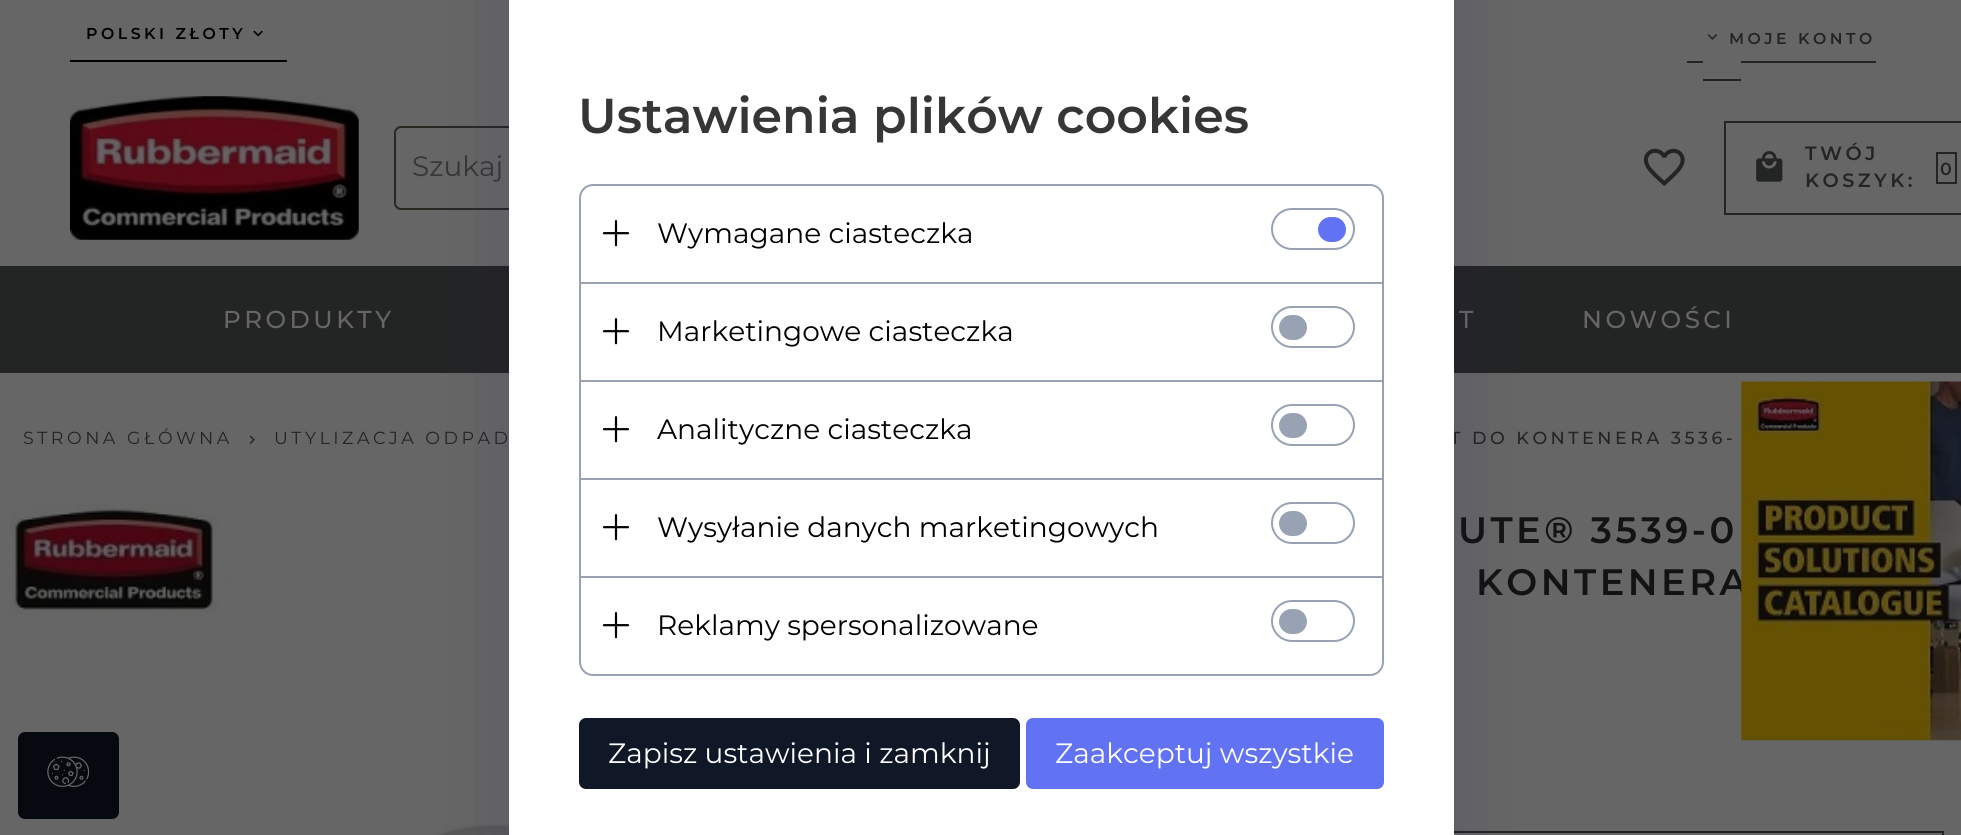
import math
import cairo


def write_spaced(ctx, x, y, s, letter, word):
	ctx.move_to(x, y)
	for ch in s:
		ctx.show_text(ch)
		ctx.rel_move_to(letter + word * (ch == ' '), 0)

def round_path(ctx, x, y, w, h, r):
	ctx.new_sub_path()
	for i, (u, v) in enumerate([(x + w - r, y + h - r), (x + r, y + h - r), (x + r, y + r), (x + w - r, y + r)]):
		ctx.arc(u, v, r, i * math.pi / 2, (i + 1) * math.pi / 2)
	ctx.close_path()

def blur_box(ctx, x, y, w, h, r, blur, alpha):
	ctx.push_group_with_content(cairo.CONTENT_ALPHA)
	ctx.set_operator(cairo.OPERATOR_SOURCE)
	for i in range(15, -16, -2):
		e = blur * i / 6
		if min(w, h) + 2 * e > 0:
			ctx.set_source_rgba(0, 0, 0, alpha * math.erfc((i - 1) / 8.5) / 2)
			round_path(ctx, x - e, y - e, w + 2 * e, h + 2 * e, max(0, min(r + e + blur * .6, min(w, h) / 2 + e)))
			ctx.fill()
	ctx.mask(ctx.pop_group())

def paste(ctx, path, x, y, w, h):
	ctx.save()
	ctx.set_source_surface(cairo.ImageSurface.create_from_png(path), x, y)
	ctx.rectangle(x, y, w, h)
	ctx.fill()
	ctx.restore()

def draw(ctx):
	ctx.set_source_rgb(0.4, 0.4, 0.4)
	ctx.paint()
	ctx.set_source_rgb(0, 0, 0)
	ctx.rectangle(70, 60, 217, 2)
	ctx.fill()
	ctx.select_font_face('Montserrat SemiBold')
	ctx.set_font_size(15.75)
	write_spaced(ctx, 86, 39, 'POLSKI ZŁOTY', 3.5, 0)
	paste(ctx, 'media/1.png', 253, 30, 10, 7)
	ctx.set_source_rgb(0.137, 0.141, 0.141)
	ctx.rectangle(1687, 61, 189, 2)
	ctx.fill()
	ctx.set_source_rgb(0.4, 0.4, 0.4)
	ctx.rectangle(1703, 61, 38, 2)
	ctx.fill()
	ctx.set_source_rgb(0.137, 0.141, 0.141)
	ctx.rectangle(1703, 79, 38, 2)
	ctx.fill()
	paste(ctx, 'media/2.png', 1707, 34, 11, 6)
	write_spaced(ctx, 1729, 44, 'MOJE KONTO', 3.5, 0)
	paste(ctx, 'media/3.png', 70, 96, 289, 144)
	round_path(ctx, 395, 127, 694, 82, 6)
	ctx.set_source_rgb(0.165, 0.153, 0.137)
	ctx.stroke()
	ctx.select_font_face('Montserrat')
	ctx.set_font_size(28)
	ctx.set_source_rgb(0.212, 0.212, 0.212)
	ctx.move_to(412, 176)
	ctx.show_text('Szukaj')
	paste(ctx, 'media/4.png', 1643, 148, 42, 39)
	ctx.rectangle(1725, 122, 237, 92)
	ctx.set_source_rgb(0.137, 0.141, 0.141)
	ctx.stroke()
	paste(ctx, 'media/5.png', 1756, 151, 27, 31)
	ctx.select_font_face('Montserrat SemiBold')
	ctx.set_font_size(19.25)
	write_spaced(ctx, 1805, 160, 'TWÓJ', 3.5, 0)
	write_spaced(ctx, 1805, 187, 'KOSZYK:', 3.5, 0)
	ctx.rectangle(1937, 153, 19, 30)
	ctx.stroke()
	ctx.set_font_size(17.5)
	ctx.move_to(1940, 175)
	ctx.show_text('0')
	ctx.rectangle(0, 266, 1961, 107)
	ctx.fill()
	ctx.select_font_face('Montserrat Medium')
	ctx.set_font_size(24.5)
	ctx.set_source_rgb(0.4, 0.4, 0.4)
	for x, y, s in [
		(223, 328, 'PRODUKTY'),
		(1459, 328, 'T'),
		(1582, 328, 'NOWOŚCI'),
	]:
		write_spaced(ctx, x, y, s, 3.5, 0)
	ctx.select_font_face('Montserrat')
	ctx.set_font_size(17.5)
	ctx.set_source_rgb(0.137, 0.141, 0.141)
	write_spaced(ctx, 23, 444, 'STRONA GŁÓWNA', 3.5, 0)
	paste(ctx, 'media/6.png', 249, 435, 6, 9)
	write_spaced(ctx, 274, 444, 'UTYLIZACJA ODPAD', 3.5, 0)
	ctx.select_font_face('Montserrat Medium')
	write_spaced(ctx, 1450, 444, 'T DO KONTENERA 3536-', 3.5, 0)
	paste(ctx, 'media/7.png', 10, 504, 499, 331)
	ctx.select_font_face('Montserrat SemiBold')
	ctx.set_font_size(36.75)
	ctx.set_source_rgb(0.078, 0.078, 0.078)
	write_spaced(ctx, 1458, 543, 'UTE® 3539-0', 3.5, 0)
	write_spaced(ctx, 1476, 595, 'KONTENERA', 3.5, 0)
	ctx.rectangle(1156, 832, 787, 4)
	ctx.set_source_rgb(0.137, 0.141, 0.141)
	ctx.stroke()
	ctx.set_source_rgb(0.024, 0.039, 0.063)
	round_path(ctx, 19, 733, 99, 85, 6)
	ctx.fill_preserve()
	ctx.stroke()
	paste(ctx, 'media/8.png', 47, 756, 42, 31)
	ctx.set_source_rgb(0.129, 0.102, 0.412)
	blur_box(ctx, 509, -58, 945, 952, 28, 42, 0.15)
	ctx.set_source_rgb(1, 1, 1)
	ctx.rectangle(509, 0, 945, 835)
	ctx.fill()
	ctx.set_font_size(49)
	ctx.set_source_rgb(0.212, 0.212, 0.212)
	ctx.move_to(578, 133)
	ctx.show_text('Ustawienia plików cookies')
	round_path(ctx, 580, 185, 803, 490, 13)
	ctx.set_source_rgb(0.596, 0.635, 0.702)
	ctx.stroke()
	paste(ctx, 'media/9.png', 602, 220, 28, 27)
	ctx.select_font_face('Montserrat')
	ctx.set_font_size(28)
	ctx.set_source_rgb(0, 0, 0)
	ctx.move_to(657, 243)
	ctx.show_text('Wymagane ciasteczka')
	round_path(ctx, 1272, 209, 82, 40, 20)
	ctx.set_source_rgb(0.596, 0.635, 0.702)
	ctx.stroke()
	ctx.set_source_rgb(0.38, 0.447, 0.953)
	round_path(ctx, 1319, 218, 26, 23, 11.5)
	ctx.fill_preserve()
	ctx.stroke()
	ctx.set_source_rgb(0.596, 0.635, 0.702)
	ctx.rectangle(581, 282, 802, 2)
	ctx.fill()
	paste(ctx, 'media/9.png', 602, 318, 28, 27)
	ctx.set_source_rgb(0, 0, 0)
	ctx.move_to(657, 341)
	ctx.show_text('Marketingowe ciasteczka')
	round_path(ctx, 1272, 307, 82, 40, 20)
	ctx.set_source_rgb(0.596, 0.635, 0.702)
	ctx.stroke()
	round_path(ctx, 1280, 316, 26, 23, 11.5)
	ctx.fill_preserve()
	ctx.stroke()
	ctx.rectangle(581, 380, 802, 2)
	ctx.fill()
	paste(ctx, 'media/9.png', 602, 416, 28, 27)
	ctx.set_source_rgb(0, 0, 0)
	ctx.move_to(657, 439)
	ctx.show_text('Analityczne ciasteczka')
	round_path(ctx, 1272, 405, 82, 40, 20)
	ctx.set_source_rgb(0.596, 0.635, 0.702)
	ctx.stroke()
	round_path(ctx, 1280, 414, 26, 23, 11.5)
	ctx.fill_preserve()
	ctx.stroke()
	ctx.rectangle(581, 478, 802, 2)
	ctx.fill()
	paste(ctx, 'media/9.png', 602, 514, 28, 27)
	ctx.set_source_rgb(0, 0, 0)
	ctx.move_to(657, 537)
	ctx.show_text('Wysyłanie danych marketingowych')
	round_path(ctx, 1272, 503, 82, 40, 20)
	ctx.set_source_rgb(0.596, 0.635, 0.702)
	ctx.stroke()
	round_path(ctx, 1280, 512, 26, 23, 11.5)
	ctx.fill_preserve()
	ctx.stroke()
	ctx.rectangle(581, 576, 802, 2)
	ctx.fill()
	paste(ctx, 'media/9.png', 602, 612, 28, 27)
	ctx.set_source_rgb(0, 0, 0)
	ctx.move_to(657, 635)
	ctx.show_text('Reklamy spersonalizowane')
	round_path(ctx, 1272, 601, 82, 40, 20)
	ctx.set_source_rgb(0.596, 0.635, 0.702)
	ctx.stroke()
	round_path(ctx, 1280, 610, 26, 23, 11.5)
	ctx.fill_preserve()
	ctx.stroke()
	ctx.set_source_rgb(0.063, 0.094, 0.157)
	round_path(ctx, 580, 719, 439, 69, 6)
	ctx.fill_preserve()
	ctx.stroke()
	ctx.set_source_rgb(1, 1, 1)
	ctx.move_to(608, 763)
	ctx.show_text('Zapisz ustawienia i zamknij')
	ctx.set_source_rgb(0.38, 0.447, 0.953)
	round_path(ctx, 1026, 718, 358, 71, 7)
	ctx.fill()
	ctx.set_source_rgb(1, 1, 1)
	ctx.move_to(1055, 763)
	ctx.show_text('Zaakceptuj wszystkie')
	paste(ctx, 'media/10.png', 1741, 381, 220, 360)


surface = cairo.ImageSurface(cairo.FORMAT_RGB24, 1961, 835)
ctx = cairo.Context(surface)
options = cairo.FontOptions()
options.set_hint_metrics(cairo.HINT_METRICS_OFF)
options.set_hint_style(cairo.HINT_STYLE_NONE)
ctx.set_font_options(options)
ctx.set_miter_limit(4)
draw(ctx)
surface.write_to_png('image.png')
